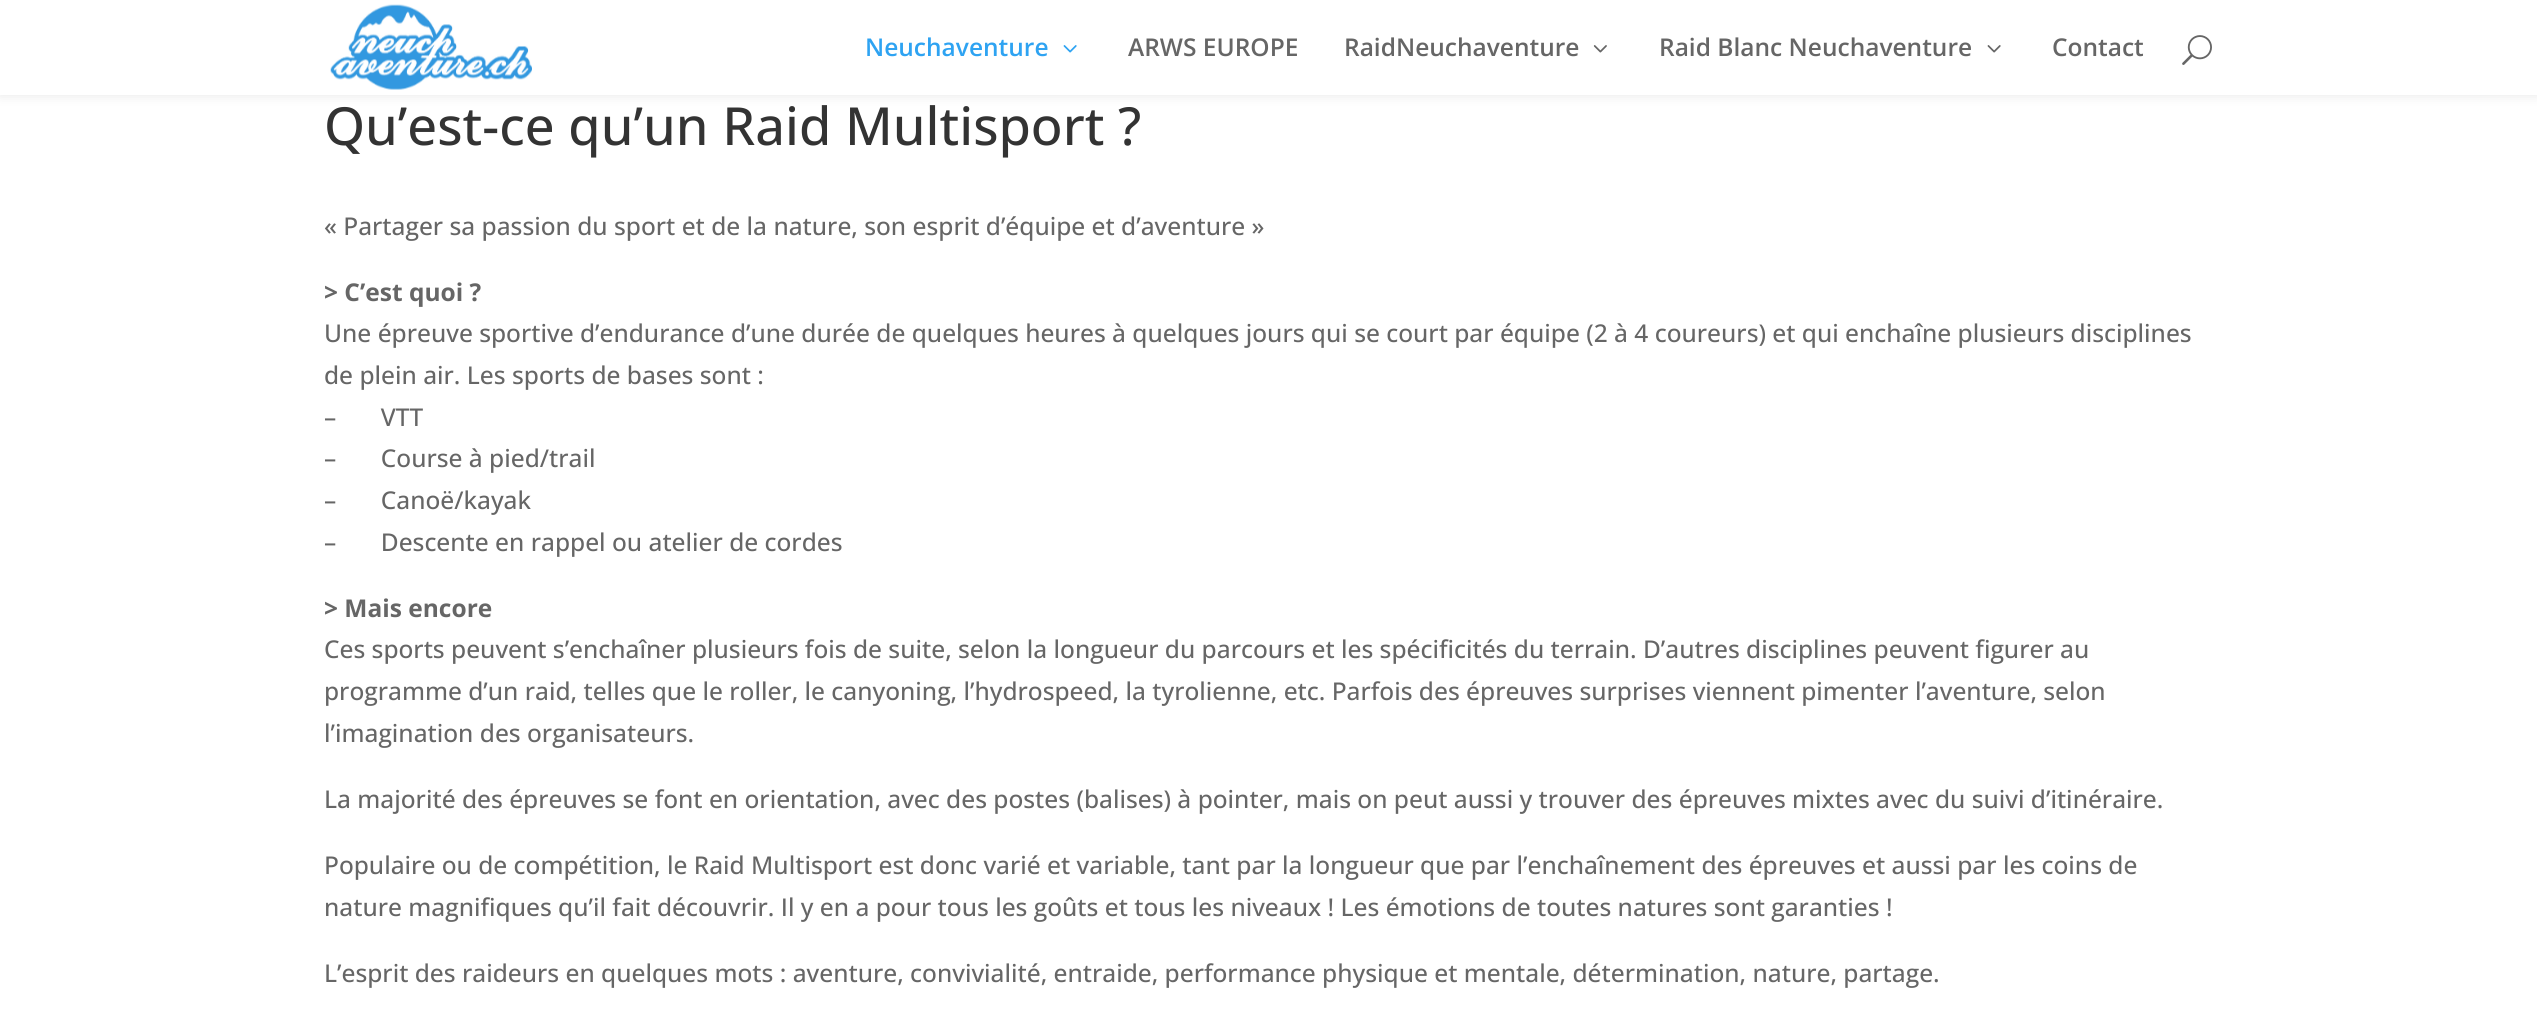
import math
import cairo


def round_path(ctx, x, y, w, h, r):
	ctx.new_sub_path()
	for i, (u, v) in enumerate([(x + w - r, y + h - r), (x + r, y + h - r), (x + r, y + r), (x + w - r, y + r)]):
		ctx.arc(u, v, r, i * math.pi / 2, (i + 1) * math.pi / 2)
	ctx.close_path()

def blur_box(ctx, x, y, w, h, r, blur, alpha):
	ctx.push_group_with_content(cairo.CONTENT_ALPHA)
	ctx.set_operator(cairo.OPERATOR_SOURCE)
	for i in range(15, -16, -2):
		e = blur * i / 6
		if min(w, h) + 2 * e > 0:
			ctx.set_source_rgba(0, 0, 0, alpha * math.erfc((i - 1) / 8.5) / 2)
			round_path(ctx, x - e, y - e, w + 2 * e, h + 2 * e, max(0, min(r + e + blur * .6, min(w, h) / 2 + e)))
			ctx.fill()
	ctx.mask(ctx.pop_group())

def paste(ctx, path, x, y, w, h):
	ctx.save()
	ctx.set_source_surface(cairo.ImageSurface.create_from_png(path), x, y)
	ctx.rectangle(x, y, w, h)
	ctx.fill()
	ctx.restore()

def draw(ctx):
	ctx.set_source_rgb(1, 1, 1)
	ctx.paint()
	ctx.set_source_rgb(0, 0, 0)
	blur_box(ctx, 0, 0, 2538, 95, 0, 6, 0.1)
	ctx.set_source_rgb(1, 1, 1)
	ctx.rectangle(0, 0, 2537, 95)
	ctx.fill()
	paste(ctx, 'media/1.png', 330, 4, 202, 86)
	ctx.select_font_face('Open Sans SemiBold')
	ctx.set_font_size(24.5)
	ctx.set_source_rgb(0.18, 0.639, 0.949)
	ctx.move_to(865, 56)
	ctx.show_text('Neuchaventure')
	paste(ctx, 'media/2.png', 1063, 45, 14, 8)
	ctx.set_source_rgb(0.4, 0.4, 0.4)
	ctx.move_to(1128, 56)
	ctx.show_text('ARWS EUROPE')
	ctx.move_to(1344, 56)
	ctx.show_text('RaidNeuchaventure')
	paste(ctx, 'media/3.png', 1593, 45, 14, 8)
	ctx.move_to(1659, 56)
	ctx.show_text('Raid Blanc Neuchaventure')
	paste(ctx, 'media/4.png', 1987, 45, 14, 8)
	ctx.move_to(2052, 56)
	ctx.show_text('Contact')
	paste(ctx, 'media/5.png', 2182, 35, 30, 30)
	ctx.select_font_face('Open Sans Medium')
	ctx.set_font_size(52.5)
	ctx.set_source_rgb(0.2, 0.2, 0.2)
	ctx.move_to(324, 145)
	ctx.show_text('Qu’est-ce qu’un Raid Multisport ?')
	ctx.set_font_size(24.5)
	ctx.set_source_rgb(0.4, 0.4, 0.4)
	ctx.move_to(324, 235)
	ctx.show_text('« Partager sa passion du sport et de la nature, son esprit d’équipe et d’aventure »')
	ctx.select_font_face('Open Sans', cairo.FONT_SLANT_NORMAL, cairo.FONT_WEIGHT_BOLD)
	ctx.move_to(324, 301)
	ctx.show_text('> C’est quoi ?')
	ctx.select_font_face('Open Sans Medium')
	for x, y, s in [
		(324, 342, 'Une épreuve sportive d’endurance d’une durée de quelques heures à quelques jours qui se court par équipe (2 à 4 coureurs) et qui enchaîne plusieurs disciplines'),
		(324, 384, 'de plein air. Les sports de bases sont :'),
		(324, 426, '–       VTT'),
		(324, 467, '–       Course à pied/trail'),
		(324, 509, '–       Canoë/kayak'),
		(324, 551, '–       Descente en rappel ou atelier de cordes'),
	]:
		ctx.move_to(x, y)
		ctx.show_text(s)
	ctx.select_font_face('Open Sans', cairo.FONT_SLANT_NORMAL, cairo.FONT_WEIGHT_BOLD)
	ctx.move_to(324, 617)
	ctx.show_text('> Mais encore')
	ctx.select_font_face('Open Sans Medium')
	for x, y, s in [
		(324, 658, 'Ces sports peuvent s’enchaîner plusieurs fois de suite, selon la longueur du parcours et les spécificités du terrain. D’autres disciplines peuvent figurer au'),
		(324, 700, 'programme d’un raid, telles que le roller, le canyoning, l’hydrospeed, la tyrolienne, etc. Parfois des épreuves surprises viennent pimenter l’aventure, selon'),
		(324, 742, 'l’imagination des organisateurs.'),
		(324, 808, 'La majorité des épreuves se font en orientation, avec des postes (balises) à pointer, mais on peut aussi y trouver des épreuves mixtes avec du suivi d’itinéraire.'),
		(324, 874, 'Populaire ou de compétition, le Raid Multisport est donc varié et variable, tant par la longueur que par l’enchaînement des épreuves et aussi par les coins de'),
		(324, 916, 'nature magnifiques qu’il fait découvrir. Il y en a pour tous les goûts et tous les niveaux ! Les émotions de toutes natures sont garanties !'),
		(324, 982, 'L’esprit des raideurs en quelques mots : aventure, convivialité, entraide, performance physique et mentale, détermination, nature, partage.'),
	]:
		ctx.move_to(x, y)
		ctx.show_text(s)


surface = cairo.ImageSurface(cairo.FORMAT_RGB24, 2537, 1027)
ctx = cairo.Context(surface)
options = cairo.FontOptions()
options.set_hint_metrics(cairo.HINT_METRICS_OFF)
options.set_hint_style(cairo.HINT_STYLE_NONE)
ctx.set_font_options(options)
ctx.set_miter_limit(4)
draw(ctx)
surface.write_to_png('image.png')
